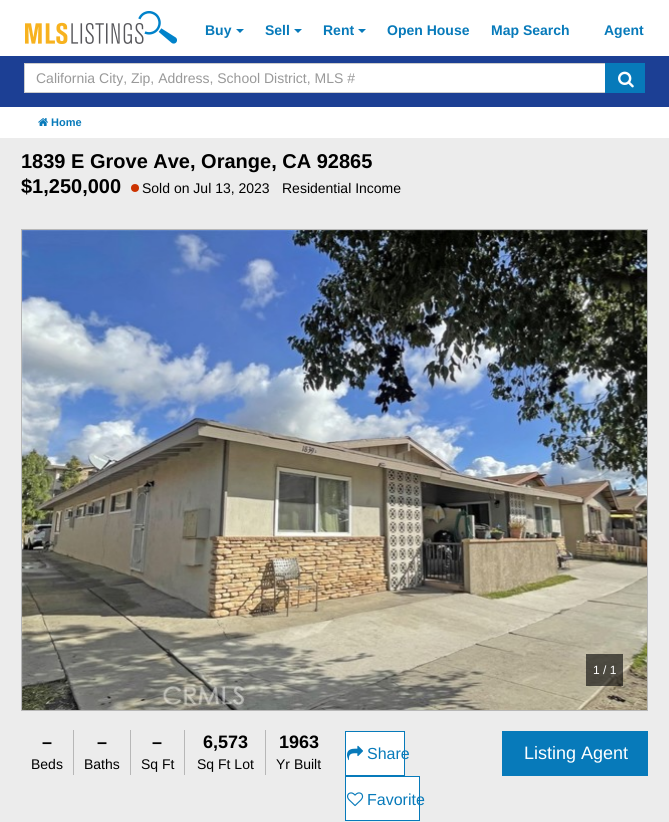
import math
import cairo


def paste(ctx, path, x, y, w, h):
	ctx.save()
	ctx.set_source_surface(cairo.ImageSurface.create_from_png(path), x, y)
	ctx.rectangle(x, y, w, h)
	ctx.fill()
	ctx.restore()

def draw(ctx):
	ctx.set_source_rgb(1, 1, 1)
	ctx.paint()
	paste(ctx, 'media/1.png', 25, 11, 152, 33)
	ctx.select_font_face('Liberation Sans', cairo.FONT_SLANT_NORMAL, cairo.FONT_WEIGHT_BOLD)
	ctx.set_font_size(14)
	ctx.set_source_rgb(0.031, 0.478, 0.729)
	ctx.move_to(205, 35)
	ctx.show_text('Buy')
	ctx.new_path()
	ctx.move_to(236, 29)
	ctx.line_to(244, 29)
	ctx.line_to(240, 33)
	ctx.close_path()
	ctx.fill()
	ctx.move_to(265, 35)
	ctx.show_text('Sell')
	ctx.new_path()
	ctx.move_to(294, 29)
	ctx.line_to(302, 29)
	ctx.line_to(298, 33)
	ctx.close_path()
	ctx.fill()
	ctx.move_to(323, 35)
	ctx.show_text('Rent')
	ctx.new_path()
	ctx.move_to(358, 29)
	ctx.line_to(366, 29)
	ctx.line_to(362, 33)
	ctx.close_path()
	ctx.fill()
	for x, y, s in [
		(387, 35, 'Open House'),
		(491, 35, 'Map Search'),
		(604, 35, 'Agent'),
	]:
		ctx.move_to(x, y)
		ctx.show_text(s)
	ctx.set_source_rgb(0.11, 0.247, 0.58)
	ctx.rectangle(0, 56, 669, 51)
	ctx.fill()
	ctx.set_source_rgb(1, 1, 1)
	ctx.rectangle(24.5, 63.5, 581, 29)
	ctx.fill_preserve()
	ctx.set_source_rgb(0.8, 0.8, 0.8)
	ctx.set_line_width(1)
	ctx.stroke()
	ctx.select_font_face('Liberation Sans')
	ctx.set_source_rgb(0.6, 0.6, 0.6)
	ctx.move_to(36, 83)
	ctx.show_text('California City, Zip, Address, School District, MLS #')
	ctx.set_source_rgb(0.031, 0.478, 0.729)
	ctx.rectangle(605, 63, 40, 30)
	ctx.fill()
	paste(ctx, 'media/2.png', 618, 71, 16, 17)
	paste(ctx, 'media/3.png', 38, 118, 10, 8)
	ctx.select_font_face('Liberation Sans', cairo.FONT_SLANT_NORMAL, cairo.FONT_WEIGHT_BOLD)
	ctx.set_font_size(11)
	ctx.move_to(51, 126)
	ctx.show_text('Home')
	ctx.set_source_rgb(0.922, 0.922, 0.922)
	ctx.rectangle(0, 138, 669, 684)
	ctx.fill()
	ctx.set_font_size(20)
	ctx.set_source_rgb(0, 0, 0)
	ctx.move_to(21, 168)
	ctx.show_text('1839 E Grove Ave, Orange, CA 92865')
	ctx.move_to(21, 193)
	ctx.show_text('$1,250,000')
	ctx.set_source_rgb(0.8, 0.2, 0)
	ctx.new_path()
	ctx.arc(135, 188, 4, 0, 2 * math.pi)
	ctx.fill()
	ctx.select_font_face('Liberation Sans')
	ctx.set_font_size(14)
	ctx.set_source_rgb(0, 0, 0)
	ctx.move_to(142, 193)
	ctx.show_text('Sold on Jul 13, 2023')
	ctx.move_to(282, 193)
	ctx.show_text('Residential Income')
	ctx.rectangle(21.5, 229.5, 626, 481)
	ctx.set_source_rgb(0.718, 0.718, 0.718)
	ctx.stroke()
	paste(ctx, 'media/4.png', 22, 230, 625, 480)
	ctx.set_source_rgba(0, 0, 0, 0.6)
	ctx.rectangle(586, 654, 37, 32)
	ctx.fill()
	ctx.set_font_size(12)
	ctx.set_source_rgb(1, 1, 1)
	ctx.move_to(593, 674)
	ctx.show_text('1 / 1')
	ctx.select_font_face('Liberation Sans', cairo.FONT_SLANT_NORMAL, cairo.FONT_WEIGHT_BOLD)
	ctx.set_font_size(18)
	ctx.set_source_rgb(0, 0, 0)
	for x, y, s in [
		(42, 748, '–'),
		(97, 748, '–'),
		(152, 748, '–'),
		(203, 748, '6,573'),
		(279, 748, '1963'),
	]:
		ctx.move_to(x, y)
		ctx.show_text(s)
	ctx.select_font_face('Liberation Sans')
	ctx.set_font_size(14)
	ctx.move_to(31, 769)
	ctx.show_text('Beds')
	ctx.set_source_rgb(0.718, 0.718, 0.718)
	ctx.rectangle(73, 730, 1, 45)
	ctx.fill()
	ctx.set_source_rgb(0, 0, 0)
	ctx.move_to(84, 769)
	ctx.show_text('Baths')
	ctx.set_source_rgb(0.718, 0.718, 0.718)
	ctx.rectangle(130, 730, 1, 45)
	ctx.fill()
	ctx.set_source_rgb(0, 0, 0)
	ctx.move_to(141, 769)
	ctx.show_text('Sq Ft')
	ctx.set_source_rgb(0.718, 0.718, 0.718)
	ctx.rectangle(184, 730, 1, 45)
	ctx.fill()
	ctx.set_source_rgb(0, 0, 0)
	ctx.move_to(197, 769)
	ctx.show_text('Sq Ft Lot')
	ctx.set_source_rgb(0.718, 0.718, 0.718)
	ctx.rectangle(265, 730, 1, 45)
	ctx.fill()
	ctx.set_source_rgb(0, 0, 0)
	ctx.move_to(276, 769)
	ctx.show_text('Yr Built')
	ctx.set_source_rgb(1, 1, 1)
	ctx.rectangle(345.5, 731.5, 59, 44)
	ctx.fill_preserve()
	ctx.set_source_rgb(0.031, 0.478, 0.729)
	ctx.stroke()
	paste(ctx, 'media/5.png', 347, 745, 16, 16)
	ctx.set_font_size(16)
	ctx.move_to(367, 759)
	ctx.show_text('Share')
	ctx.set_source_rgb(1, 1, 1)
	ctx.rectangle(345.5, 776.5, 74, 44)
	ctx.fill_preserve()
	ctx.set_source_rgb(0.031, 0.478, 0.729)
	ctx.stroke()
	paste(ctx, 'media/6.png', 347, 792, 17, 15)
	ctx.move_to(367, 805)
	ctx.show_text('Favorite')
	ctx.rectangle(502, 731, 146, 45)
	ctx.fill()
	ctx.set_font_size(18)
	ctx.set_source_rgb(1, 1, 1)
	ctx.move_to(524, 759)
	ctx.show_text('Listing Agent')


surface = cairo.ImageSurface(cairo.FORMAT_RGB24, 669, 822)
ctx = cairo.Context(surface)
options = cairo.FontOptions()
options.set_hint_metrics(cairo.HINT_METRICS_OFF)
options.set_hint_style(cairo.HINT_STYLE_NONE)
ctx.set_font_options(options)
ctx.set_miter_limit(4)
draw(ctx)
surface.write_to_png('image.png')
